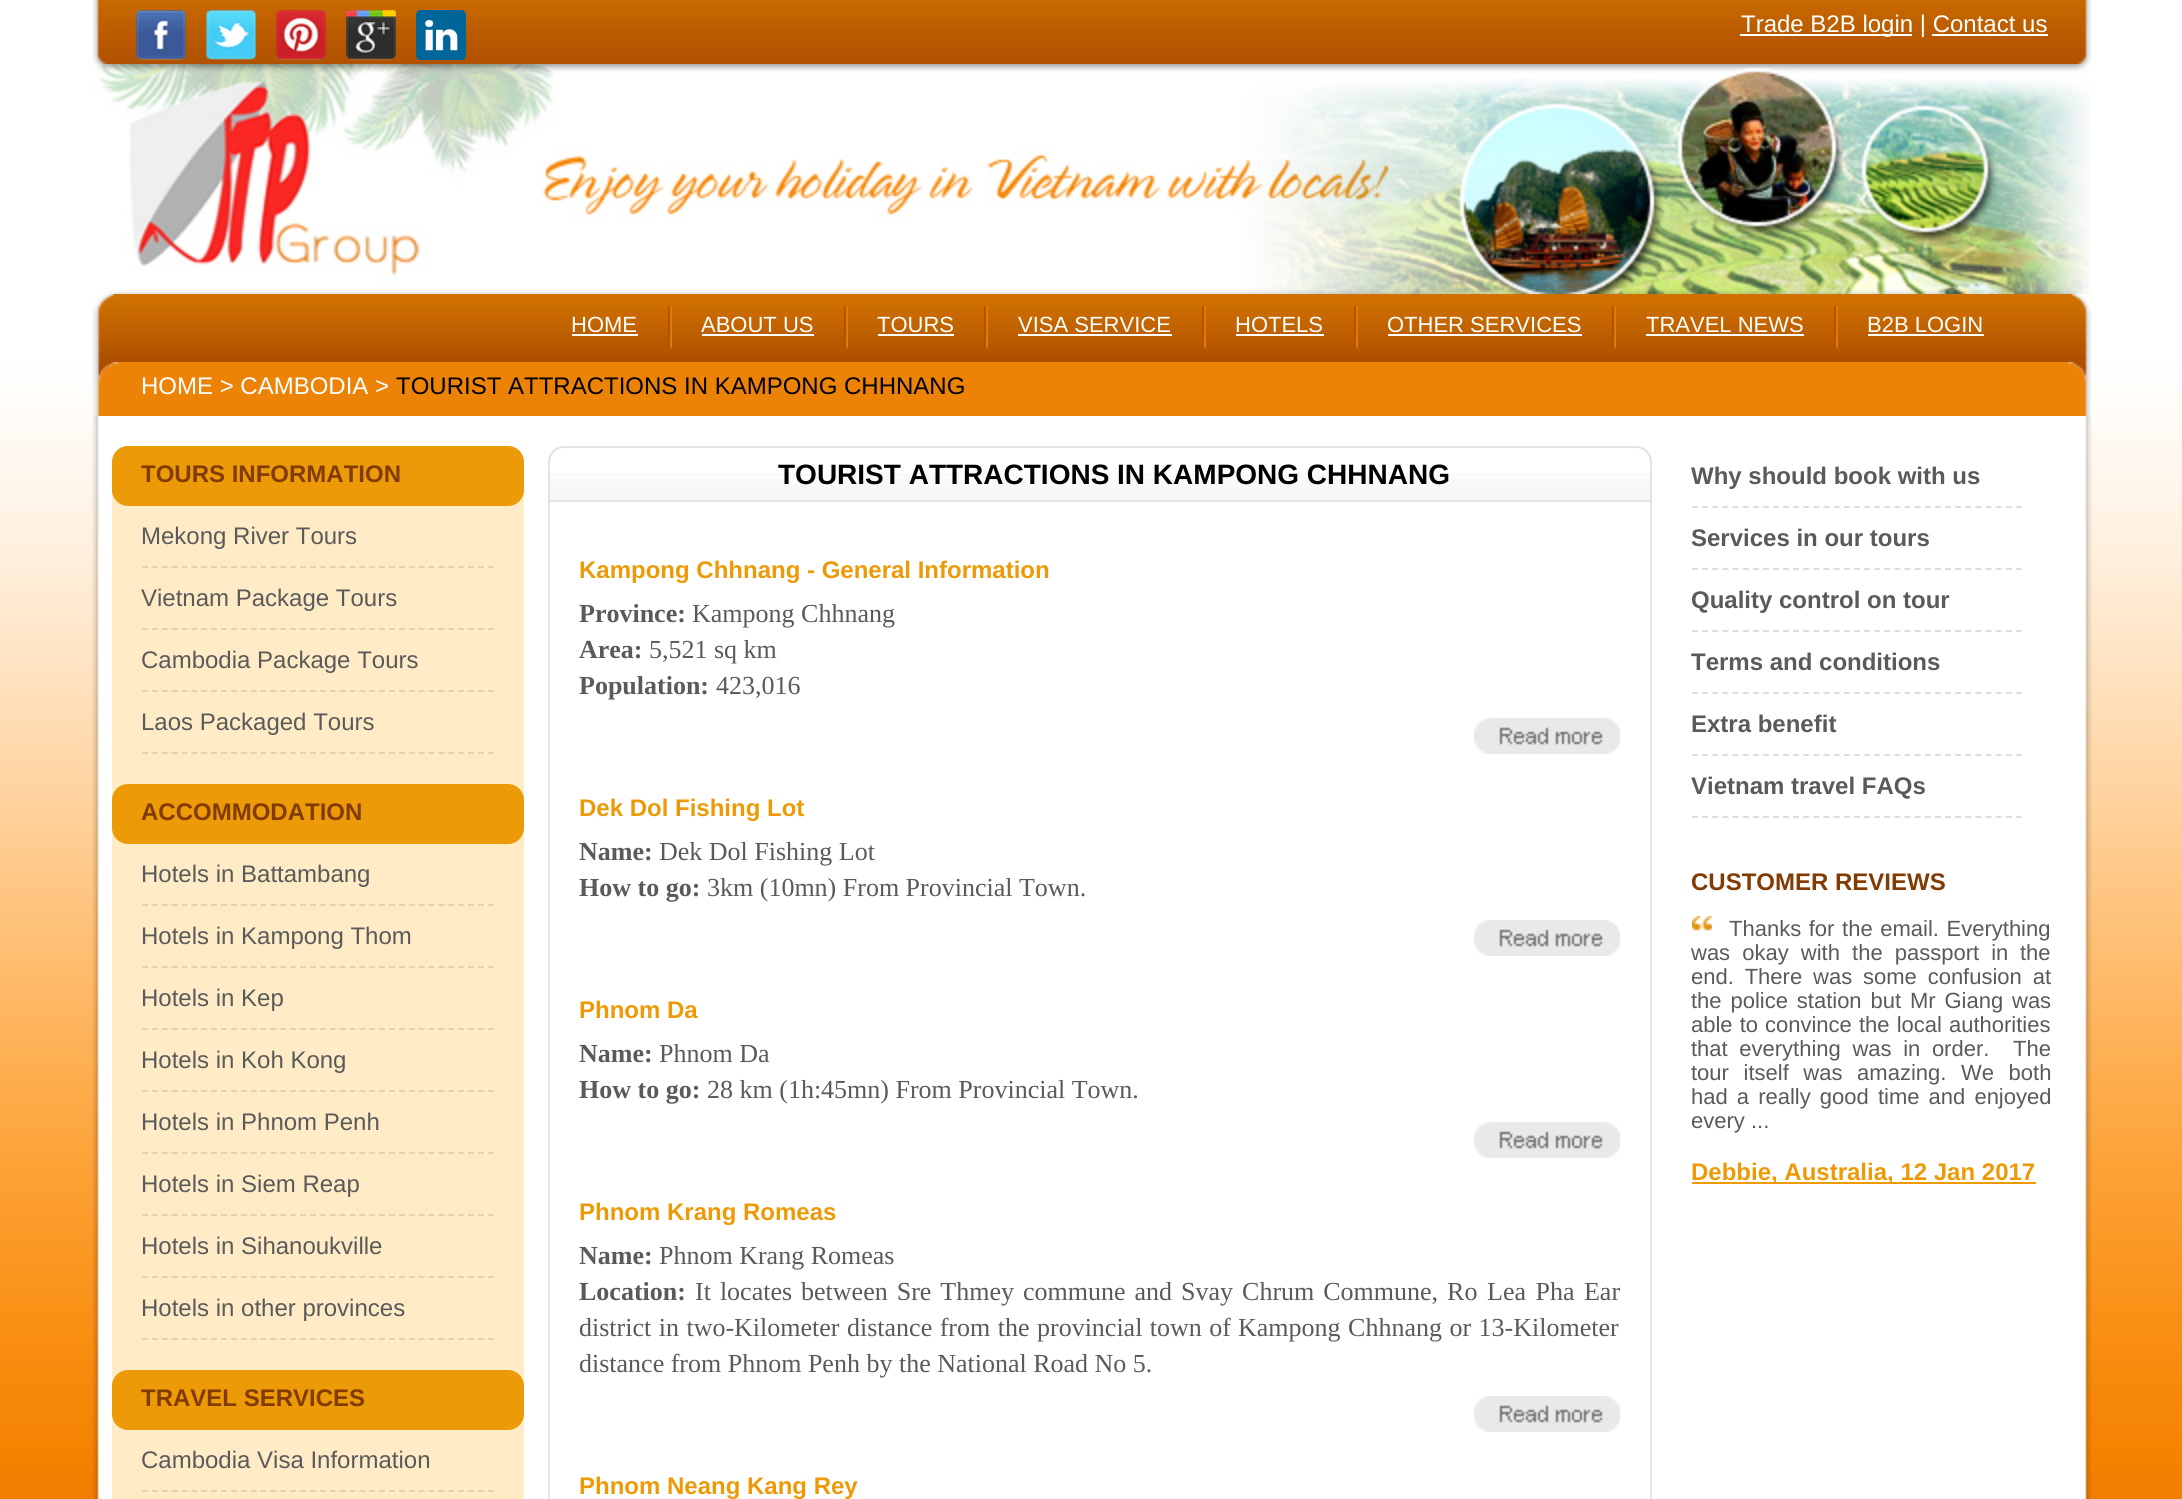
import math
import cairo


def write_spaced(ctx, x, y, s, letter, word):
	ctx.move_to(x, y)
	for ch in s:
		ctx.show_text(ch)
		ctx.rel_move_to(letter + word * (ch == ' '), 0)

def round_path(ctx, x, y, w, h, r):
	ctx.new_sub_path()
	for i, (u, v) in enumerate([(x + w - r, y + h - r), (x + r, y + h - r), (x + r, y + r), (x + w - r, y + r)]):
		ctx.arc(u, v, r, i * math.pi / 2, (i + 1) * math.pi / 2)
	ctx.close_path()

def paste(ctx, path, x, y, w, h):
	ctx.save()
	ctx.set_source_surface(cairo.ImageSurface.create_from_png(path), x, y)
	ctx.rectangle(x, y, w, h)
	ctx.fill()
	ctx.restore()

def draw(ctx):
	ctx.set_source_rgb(1, 1, 1)
	ctx.paint()
	paste(ctx, 'media/1.png', 0, 0, 2182, 1499)
	paste(ctx, 'media/2.png', 92, 0, 14, 64)
	paste(ctx, 'media/3.png', 106, 0, 1972, 64)
	paste(ctx, 'media/4.png', 136, 10, 50, 50)
	paste(ctx, 'media/5.png', 206, 10, 50, 50)
	paste(ctx, 'media/6.png', 276, 10, 50, 50)
	paste(ctx, 'media/7.png', 346, 10, 50, 50)
	paste(ctx, 'media/8.png', 416, 10, 50, 50)
	ctx.set_source_rgb(1, 1, 1)
	ctx.rectangle(1740, 34, 172, 2)
	ctx.fill()
	ctx.select_font_face('Liberation Sans')
	ctx.set_font_size(24)
	ctx.move_to(1741, 32)
	ctx.show_text('Trade B2B login | Contact us')
	ctx.rectangle(1932, 34, 116, 2)
	ctx.fill()
	paste(ctx, 'media/9.png', 2078, 0, 14, 64)
	paste(ctx, 'media/10.png', 95, 64, 1995, 230)
	paste(ctx, 'media/11.png', 114, 294, 1958, 68)
	paste(ctx, 'media/12.png', 92, 294, 22, 68)
	paste(ctx, 'media/13.png', 2072, 294, 20, 68)
	ctx.set_font_size(22)
	ctx.move_to(571, 332)
	ctx.show_text('HOME')
	ctx.rectangle(572, 334, 66, 2)
	ctx.fill()
	paste(ctx, 'media/14.png', 668, 305, 4, 44)
	ctx.move_to(701, 332)
	ctx.show_text('ABOUT US')
	ctx.rectangle(702, 334, 112, 2)
	ctx.fill()
	paste(ctx, 'media/14.png', 844, 305, 4, 44)
	ctx.move_to(877, 332)
	ctx.show_text('TOURS')
	ctx.rectangle(878, 334, 76, 2)
	ctx.fill()
	paste(ctx, 'media/14.png', 984, 305, 4, 44)
	ctx.move_to(1018, 332)
	ctx.show_text('VISA SERVICE')
	ctx.rectangle(1018, 334, 154, 2)
	ctx.fill()
	paste(ctx, 'media/14.png', 1202, 305, 4, 44)
	ctx.move_to(1235, 332)
	ctx.show_text('HOTELS')
	ctx.rectangle(1236, 334, 88, 2)
	ctx.fill()
	paste(ctx, 'media/14.png', 1354, 305, 4, 44)
	ctx.move_to(1387, 332)
	ctx.show_text('OTHER SERVICES')
	ctx.rectangle(1388, 334, 194, 2)
	ctx.fill()
	paste(ctx, 'media/14.png', 1612, 305, 4, 44)
	ctx.move_to(1646, 332)
	ctx.show_text('TRAVEL NEWS')
	ctx.rectangle(1646, 334, 158, 2)
	ctx.fill()
	paste(ctx, 'media/14.png', 1834, 305, 4, 44)
	ctx.move_to(1867, 332)
	ctx.show_text('B2B LOGIN')
	ctx.rectangle(1868, 334, 116, 2)
	ctx.fill()
	ctx.set_source_rgb(0.925, 0.514, 0.031)
	ctx.rectangle(118, 362, 1950, 54)
	ctx.fill()
	paste(ctx, 'media/15.png', 92, 362, 26, 54)
	paste(ctx, 'media/16.png', 2068, 362, 24, 54)
	ctx.set_font_size(24)
	ctx.set_source_rgb(1, 1, 1)
	ctx.move_to(141, 394)
	ctx.show_text('HOME > CAMBODIA >')
	ctx.set_source_rgb(0, 0, 0)
	ctx.move_to(396, 394)
	ctx.show_text('TOURIST ATTRACTIONS IN KAMPONG CHHNANG')
	paste(ctx, 'media/17.png', 92, 416, 2000, 1083)
	ctx.set_source_rgb(1, 0.922, 0.78)
	round_path(ctx, 112, 446, 412, 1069, 16)
	ctx.fill()
	ctx.set_source_rgb(0.925, 0.604, 0.031)
	round_path(ctx, 112, 446, 412, 60, 16)
	ctx.fill()
	ctx.select_font_face('Liberation Sans', cairo.FONT_SLANT_NORMAL, cairo.FONT_WEIGHT_BOLD)
	ctx.set_source_rgb(0.51, 0.231, 0.008)
	ctx.move_to(141, 482)
	ctx.show_text('TOURS INFORMATION')
	ctx.select_font_face('Liberation Sans')
	ctx.set_source_rgb(0.353, 0.353, 0.353)
	ctx.move_to(141, 544)
	ctx.show_text('Mekong River Tours')
	ctx.new_path()
	ctx.move_to(142, 567)
	ctx.line_to(494, 567)
	ctx.set_source_rgb(0.91, 0.82, 0.655)
	ctx.set_dash([6, 3.88])
	ctx.stroke()
	ctx.set_source_rgb(0.353, 0.353, 0.353)
	ctx.move_to(141, 606)
	ctx.show_text('Vietnam Package Tours')
	ctx.new_path()
	ctx.move_to(142, 629)
	ctx.line_to(494, 629)
	ctx.set_source_rgb(0.91, 0.82, 0.655)
	ctx.stroke()
	ctx.set_source_rgb(0.353, 0.353, 0.353)
	ctx.move_to(141, 668)
	ctx.show_text('Cambodia Package Tours')
	ctx.new_path()
	ctx.move_to(142, 691)
	ctx.line_to(494, 691)
	ctx.set_source_rgb(0.91, 0.82, 0.655)
	ctx.stroke()
	ctx.set_source_rgb(0.353, 0.353, 0.353)
	ctx.move_to(141, 730)
	ctx.show_text('Laos Packaged Tours')
	ctx.new_path()
	ctx.move_to(142, 753)
	ctx.line_to(494, 753)
	ctx.set_source_rgb(0.91, 0.82, 0.655)
	ctx.stroke()
	ctx.set_source_rgb(0.925, 0.604, 0.031)
	round_path(ctx, 112, 784, 412, 60, 16)
	ctx.fill()
	ctx.select_font_face('Liberation Sans', cairo.FONT_SLANT_NORMAL, cairo.FONT_WEIGHT_BOLD)
	ctx.set_source_rgb(0.51, 0.231, 0.008)
	ctx.move_to(141, 820)
	ctx.show_text('ACCOMMODATION')
	ctx.select_font_face('Liberation Sans')
	ctx.set_source_rgb(0.353, 0.353, 0.353)
	ctx.move_to(141, 882)
	ctx.show_text('Hotels in Battambang')
	ctx.new_path()
	ctx.move_to(142, 905)
	ctx.line_to(494, 905)
	ctx.set_source_rgb(0.91, 0.82, 0.655)
	ctx.stroke()
	ctx.set_source_rgb(0.353, 0.353, 0.353)
	ctx.move_to(141, 944)
	ctx.show_text('Hotels in Kampong Thom')
	ctx.new_path()
	ctx.move_to(142, 967)
	ctx.line_to(494, 967)
	ctx.set_source_rgb(0.91, 0.82, 0.655)
	ctx.stroke()
	ctx.set_source_rgb(0.353, 0.353, 0.353)
	ctx.move_to(141, 1006)
	ctx.show_text('Hotels in Kep')
	ctx.new_path()
	ctx.move_to(142, 1029)
	ctx.line_to(494, 1029)
	ctx.set_source_rgb(0.91, 0.82, 0.655)
	ctx.stroke()
	ctx.set_source_rgb(0.353, 0.353, 0.353)
	ctx.move_to(141, 1068)
	ctx.show_text('Hotels in Koh Kong')
	ctx.new_path()
	ctx.move_to(142, 1091)
	ctx.line_to(494, 1091)
	ctx.set_source_rgb(0.91, 0.82, 0.655)
	ctx.stroke()
	ctx.set_source_rgb(0.353, 0.353, 0.353)
	ctx.move_to(141, 1130)
	ctx.show_text('Hotels in Phnom Penh')
	ctx.new_path()
	ctx.move_to(142, 1153)
	ctx.line_to(494, 1153)
	ctx.set_source_rgb(0.91, 0.82, 0.655)
	ctx.stroke()
	ctx.set_source_rgb(0.353, 0.353, 0.353)
	ctx.move_to(141, 1192)
	ctx.show_text('Hotels in Siem Reap')
	ctx.new_path()
	ctx.move_to(142, 1215)
	ctx.line_to(494, 1215)
	ctx.set_source_rgb(0.91, 0.82, 0.655)
	ctx.stroke()
	ctx.set_source_rgb(0.353, 0.353, 0.353)
	ctx.move_to(141, 1254)
	ctx.show_text('Hotels in Sihanoukville')
	ctx.new_path()
	ctx.move_to(142, 1277)
	ctx.line_to(494, 1277)
	ctx.set_source_rgb(0.91, 0.82, 0.655)
	ctx.stroke()
	ctx.set_source_rgb(0.353, 0.353, 0.353)
	ctx.move_to(141, 1316)
	ctx.show_text('Hotels in other provinces')
	ctx.new_path()
	ctx.move_to(142, 1339)
	ctx.line_to(494, 1339)
	ctx.set_source_rgb(0.91, 0.82, 0.655)
	ctx.stroke()
	ctx.set_source_rgb(0.925, 0.604, 0.031)
	round_path(ctx, 112, 1370, 412, 60, 16)
	ctx.fill()
	ctx.select_font_face('Liberation Sans', cairo.FONT_SLANT_NORMAL, cairo.FONT_WEIGHT_BOLD)
	ctx.set_source_rgb(0.51, 0.231, 0.008)
	ctx.move_to(141, 1406)
	ctx.show_text('TRAVEL SERVICES')
	ctx.select_font_face('Liberation Sans')
	ctx.set_source_rgb(0.353, 0.353, 0.353)
	ctx.move_to(141, 1468)
	ctx.show_text('Cambodia Visa Information')
	ctx.new_path()
	ctx.move_to(142, 1491)
	ctx.line_to(494, 1491)
	ctx.set_source_rgb(0.91, 0.82, 0.655)
	ctx.stroke()
	round_path(ctx, 549, 447, 1102, 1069, 15)
	ctx.set_source_rgb(0.89, 0.89, 0.89)
	ctx.set_dash([])
	ctx.stroke()
	paste(ctx, 'media/18.png', 550, 473, 1100, 27)
	ctx.rectangle(550, 500, 1100, 2)
	ctx.fill()
	ctx.select_font_face('Liberation Sans', cairo.FONT_SLANT_NORMAL, cairo.FONT_WEIGHT_BOLD)
	ctx.set_font_size(28)
	ctx.set_source_rgb(0, 0, 0)
	ctx.move_to(778, 484)
	ctx.show_text('TOURIST ATTRACTIONS IN KAMPONG CHHNANG')
	ctx.set_font_size(24)
	ctx.set_source_rgb(0.925, 0.604, 0.031)
	ctx.move_to(579, 578)
	ctx.show_text('Kampong Chhnang - General Information')
	ctx.select_font_face('Liberation Serif', cairo.FONT_SLANT_NORMAL, cairo.FONT_WEIGHT_BOLD)
	ctx.set_font_size(26)
	ctx.set_source_rgb(0.353, 0.353, 0.353)
	ctx.move_to(579, 622)
	ctx.show_text('Province:')
	ctx.select_font_face('Liberation Serif')
	ctx.move_to(692, 622)
	ctx.show_text('Kampong Chhnang')
	ctx.select_font_face('Liberation Serif', cairo.FONT_SLANT_NORMAL, cairo.FONT_WEIGHT_BOLD)
	ctx.move_to(579, 658)
	ctx.show_text('Area:')
	ctx.select_font_face('Liberation Serif')
	ctx.move_to(649, 658)
	ctx.show_text('5,521 sq km')
	ctx.select_font_face('Liberation Serif', cairo.FONT_SLANT_NORMAL, cairo.FONT_WEIGHT_BOLD)
	ctx.move_to(579, 694)
	ctx.show_text('Population:')
	ctx.select_font_face('Liberation Serif')
	ctx.move_to(716, 694)
	ctx.show_text('423,016')
	paste(ctx, 'media/19.png', 1474, 718, 146, 36)
	ctx.select_font_face('Liberation Sans', cairo.FONT_SLANT_NORMAL, cairo.FONT_WEIGHT_BOLD)
	ctx.set_font_size(24)
	ctx.set_source_rgb(0.925, 0.604, 0.031)
	ctx.move_to(579, 816)
	ctx.show_text('Dek Dol Fishing Lot')
	ctx.select_font_face('Liberation Serif', cairo.FONT_SLANT_NORMAL, cairo.FONT_WEIGHT_BOLD)
	ctx.set_font_size(26)
	ctx.set_source_rgb(0.353, 0.353, 0.353)
	ctx.move_to(579, 860)
	ctx.show_text('Name:')
	ctx.select_font_face('Liberation Serif')
	ctx.move_to(659, 860)
	ctx.show_text('Dek Dol Fishing Lot')
	ctx.select_font_face('Liberation Serif', cairo.FONT_SLANT_NORMAL, cairo.FONT_WEIGHT_BOLD)
	ctx.move_to(579, 896)
	ctx.show_text('How to go:')
	ctx.select_font_face('Liberation Serif')
	ctx.move_to(707, 896)
	ctx.show_text('3km (10mn) From Provincial Town.')
	paste(ctx, 'media/19.png', 1474, 920, 146, 36)
	ctx.select_font_face('Liberation Sans', cairo.FONT_SLANT_NORMAL, cairo.FONT_WEIGHT_BOLD)
	ctx.set_font_size(24)
	ctx.set_source_rgb(0.925, 0.604, 0.031)
	ctx.move_to(579, 1018)
	ctx.show_text('Phnom Da')
	ctx.select_font_face('Liberation Serif', cairo.FONT_SLANT_NORMAL, cairo.FONT_WEIGHT_BOLD)
	ctx.set_font_size(26)
	ctx.set_source_rgb(0.353, 0.353, 0.353)
	ctx.move_to(579, 1062)
	ctx.show_text('Name:')
	ctx.select_font_face('Liberation Serif')
	ctx.move_to(659, 1062)
	ctx.show_text('Phnom Da')
	ctx.select_font_face('Liberation Serif', cairo.FONT_SLANT_NORMAL, cairo.FONT_WEIGHT_BOLD)
	ctx.move_to(579, 1098)
	ctx.show_text('How to go:')
	ctx.select_font_face('Liberation Serif')
	ctx.move_to(707, 1098)
	ctx.show_text('28 km (1h:45mn) From Provincial Town.')
	paste(ctx, 'media/19.png', 1474, 1122, 146, 36)
	ctx.select_font_face('Liberation Sans', cairo.FONT_SLANT_NORMAL, cairo.FONT_WEIGHT_BOLD)
	ctx.set_font_size(24)
	ctx.set_source_rgb(0.925, 0.604, 0.031)
	ctx.move_to(579, 1220)
	ctx.show_text('Phnom Krang Romeas')
	ctx.select_font_face('Liberation Serif', cairo.FONT_SLANT_NORMAL, cairo.FONT_WEIGHT_BOLD)
	ctx.set_font_size(26)
	ctx.set_source_rgb(0.353, 0.353, 0.353)
	ctx.move_to(579, 1264)
	ctx.show_text('Name:')
	ctx.select_font_face('Liberation Serif')
	ctx.move_to(659, 1264)
	ctx.show_text('Phnom Krang Romeas')
	ctx.select_font_face('Liberation Serif', cairo.FONT_SLANT_NORMAL, cairo.FONT_WEIGHT_BOLD)
	ctx.move_to(579, 1300)
	ctx.show_text('Location:')
	ctx.select_font_face('Liberation Serif')
	write_spaced(ctx, 695, 1300, 'It locates between Sre Thmey commune and Svay Chrum Commune, Ro', 0, 2.5)
	write_spaced(ctx, 1487, 1300, 'Lea Pha Ear', 0, 3)
	write_spaced(ctx, 579, 1336, 'district in two-Kilometer distance from the provincial town of', 0, 1)
	write_spaced(ctx, 1238, 1336, 'Kampong Chhnang or 13-Kilometer', 0, 1)
	ctx.move_to(579, 1372)
	ctx.show_text('distance from Phnom Penh by the National Road No 5.')
	paste(ctx, 'media/19.png', 1474, 1396, 146, 36)
	ctx.select_font_face('Liberation Sans', cairo.FONT_SLANT_NORMAL, cairo.FONT_WEIGHT_BOLD)
	ctx.set_font_size(24)
	ctx.set_source_rgb(0.925, 0.604, 0.031)
	ctx.move_to(579, 1494)
	ctx.show_text('Phnom Neang Kang Rey')
	ctx.set_source_rgb(0.353, 0.353, 0.353)
	ctx.move_to(1691, 484)
	ctx.show_text('Why should book with us')
	ctx.new_path()
	ctx.move_to(1692, 507)
	ctx.line_to(2022, 507)
	ctx.set_source_rgb(0.867, 0.867, 0.867)
	ctx.set_dash([6, 4.12])
	ctx.stroke()
	ctx.set_source_rgb(0.353, 0.353, 0.353)
	ctx.move_to(1691, 546)
	ctx.show_text('Services in our tours')
	ctx.new_path()
	ctx.move_to(1692, 569)
	ctx.line_to(2022, 569)
	ctx.set_source_rgb(0.867, 0.867, 0.867)
	ctx.stroke()
	ctx.set_source_rgb(0.353, 0.353, 0.353)
	ctx.move_to(1691, 608)
	ctx.show_text('Quality control on tour')
	ctx.new_path()
	ctx.move_to(1692, 631)
	ctx.line_to(2022, 631)
	ctx.set_source_rgb(0.867, 0.867, 0.867)
	ctx.stroke()
	ctx.set_source_rgb(0.353, 0.353, 0.353)
	ctx.move_to(1691, 670)
	ctx.show_text('Terms and conditions')
	ctx.new_path()
	ctx.move_to(1692, 693)
	ctx.line_to(2022, 693)
	ctx.set_source_rgb(0.867, 0.867, 0.867)
	ctx.stroke()
	ctx.set_source_rgb(0.353, 0.353, 0.353)
	ctx.move_to(1691, 732)
	ctx.show_text('Extra benefit')
	ctx.new_path()
	ctx.move_to(1692, 755)
	ctx.line_to(2022, 755)
	ctx.set_source_rgb(0.867, 0.867, 0.867)
	ctx.stroke()
	ctx.set_source_rgb(0.353, 0.353, 0.353)
	ctx.move_to(1691, 794)
	ctx.show_text('Vietnam travel FAQs')
	ctx.new_path()
	ctx.move_to(1692, 817)
	ctx.line_to(2022, 817)
	ctx.set_source_rgb(0.867, 0.867, 0.867)
	ctx.stroke()
	ctx.set_source_rgb(0.51, 0.231, 0.008)
	ctx.move_to(1691, 890)
	ctx.show_text('CUSTOMER REVIEWS')
	paste(ctx, 'media/20.png', 1692, 916, 20, 15)
	ctx.select_font_face('Liberation Sans')
	ctx.set_font_size(22)
	ctx.set_source_rgb(0.353, 0.353, 0.353)
	write_spaced(ctx, 1729, 936, 'Thanks for the email. Everything', 0, 1.5)
	write_spaced(ctx, 1691, 960, 'was okay with the passport in', 0, 6)
	ctx.move_to(2020, 960)
	ctx.show_text('the')
	write_spaced(ctx, 1691, 984, 'end. There was some confusion at', 0, 4.75)
	write_spaced(ctx, 1691, 1008, 'the police station but Mr Giang was', 0, 2.75)
	write_spaced(ctx, 1691, 1032, 'able to', 0, 1)
	write_spaced(ctx, 1765, 1032, 'convince the local authorities', 0, 1)
	write_spaced(ctx, 1691, 1056, 'that everything was in order.', 0, 5.5)
	ctx.move_to(2013, 1056)
	ctx.show_text('The')
	write_spaced(ctx, 1691, 1080, 'tour itself was amazing. We both', 0, 8.5)
	write_spaced(ctx, 1691, 1104, 'had a really good time and enjoyed', 0, 3)
	ctx.move_to(1691, 1128)
	ctx.show_text('every ...')
	ctx.set_source_rgb(0.925, 0.604, 0.031)
	ctx.rectangle(1692, 1182, 344, 2)
	ctx.fill()
	ctx.select_font_face('Liberation Sans', cairo.FONT_SLANT_NORMAL, cairo.FONT_WEIGHT_BOLD)
	ctx.set_font_size(24)
	ctx.move_to(1691, 1180)
	ctx.show_text('Debbie, Australia, 12 Jan 2017')


surface = cairo.ImageSurface(cairo.FORMAT_RGB24, 2182, 1499)
ctx = cairo.Context(surface)
options = cairo.FontOptions()
options.set_hint_metrics(cairo.HINT_METRICS_OFF)
options.set_hint_style(cairo.HINT_STYLE_NONE)
ctx.set_font_options(options)
ctx.set_miter_limit(4)
draw(ctx)
surface.write_to_png('image.png')
